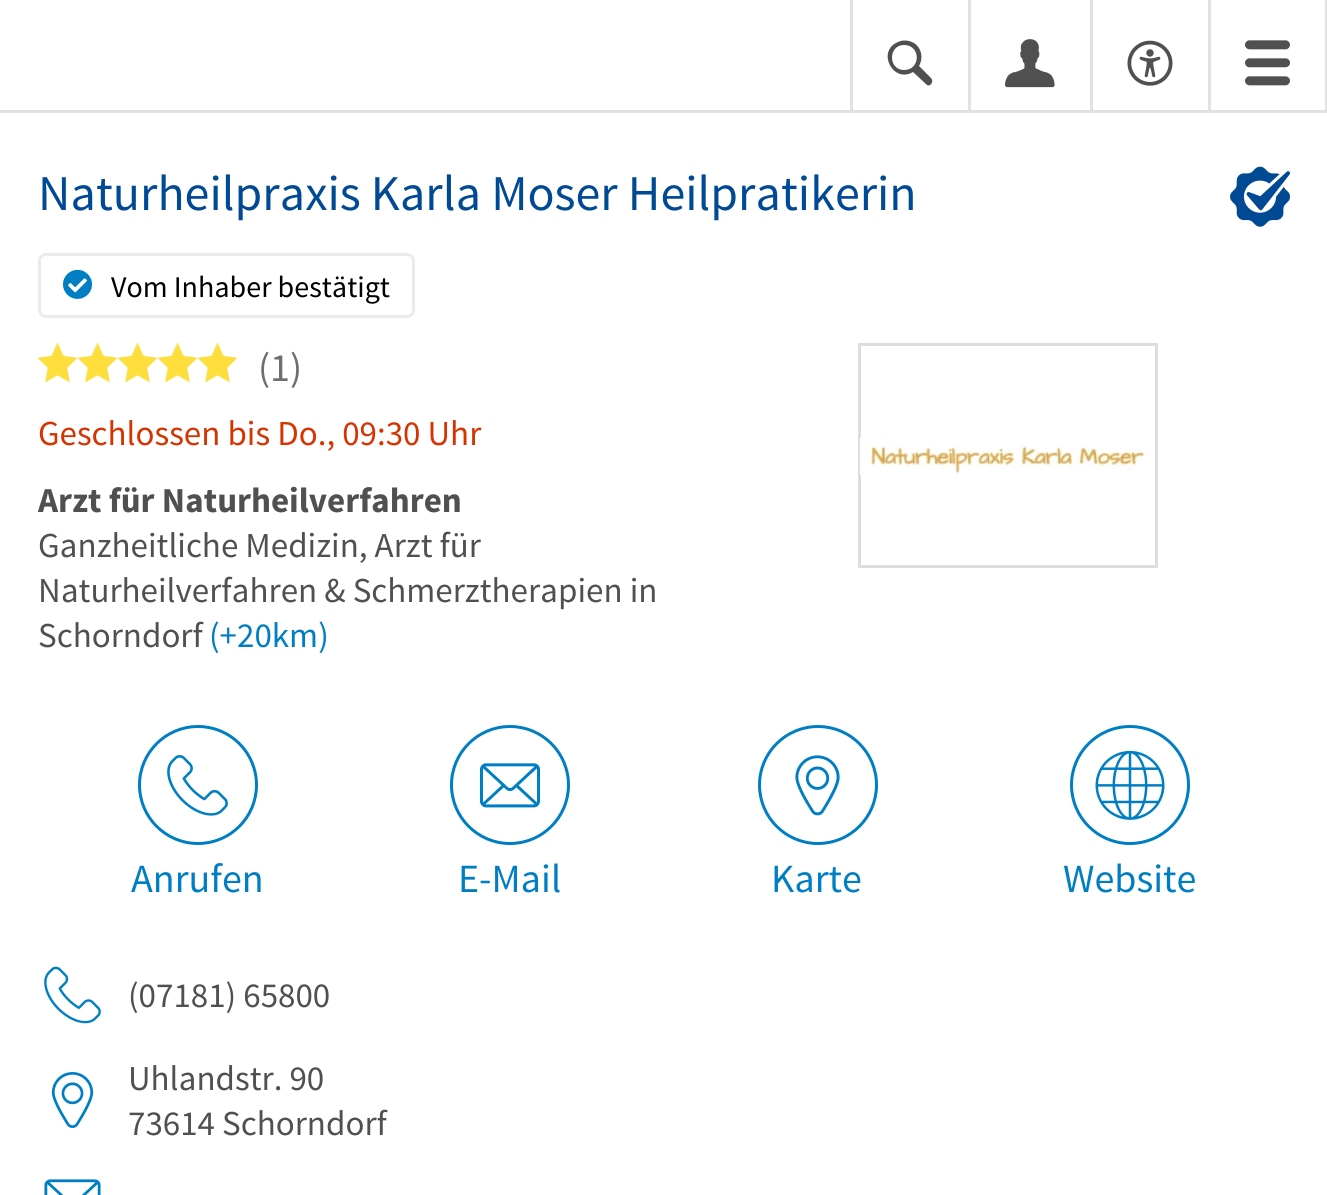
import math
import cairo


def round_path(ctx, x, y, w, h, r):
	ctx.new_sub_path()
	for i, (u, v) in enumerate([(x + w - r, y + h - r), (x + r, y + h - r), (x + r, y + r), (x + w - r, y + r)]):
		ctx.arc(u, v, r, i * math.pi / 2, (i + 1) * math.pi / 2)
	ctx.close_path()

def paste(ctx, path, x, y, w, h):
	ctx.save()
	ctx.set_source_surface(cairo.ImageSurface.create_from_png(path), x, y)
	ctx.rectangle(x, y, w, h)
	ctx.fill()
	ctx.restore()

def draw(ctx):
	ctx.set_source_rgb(1, 1, 1)
	ctx.paint()
	ctx.set_source_rgb(0.882, 0.882, 0.882)
	ctx.rectangle(0, 110, 1327, 3)
	ctx.rectangle(850, 0, 3, 113)
	ctx.rectangle(968, 0, 3, 113)
	ctx.fill()
	ctx.set_source_rgb(0.314, 0.314, 0.314)
	ctx.new_path()
	ctx.move_to(931, 78)
	ctx.curve_to(934, 81, 931, 87, 927, 85)
	ctx.line_to(913, 72)
	ctx.curve_to(893, 84, 876, 51, 898, 42)
	ctx.curve_to(902, 40, 907, 40, 912, 42)
	ctx.curve_to(921, 46, 924, 57, 919, 66)
	ctx.close_path()
	ctx.move_to(904, 45)
	ctx.curve_to(888, 45, 888, 70, 904, 70)
	ctx.curve_to(921, 70, 921, 45, 904, 45)
	ctx.close_path()
	ctx.fill()
	ctx.set_source_rgb(0.882, 0.882, 0.882)
	ctx.rectangle(1090, 0, 3, 113)
	ctx.fill()
	paste(ctx, 'media/1.png', 1005, 39, 50, 49)
	ctx.rectangle(1208, 0, 3, 113)
	ctx.fill()
	paste(ctx, 'media/2.png', 1127, 40, 46, 46)
	ctx.rectangle(1325, 0, 2, 113)
	ctx.fill()
	paste(ctx, 'media/3.png', 1245, 40, 45, 46)
	ctx.select_font_face('Source Sans Pro')
	ctx.set_font_size(50)
	ctx.set_source_rgb(0, 0.286, 0.58)
	ctx.move_to(38, 210)
	ctx.show_text('Naturheilpraxis Karla Moser Heilpratikerin')
	paste(ctx, 'media/4.png', 1230, 166, 61, 61)
	round_path(ctx, 39.5, 254.5, 374, 62, 6.5)
	ctx.set_source_rgb(0.918, 0.918, 0.918)
	ctx.set_line_width(3)
	ctx.stroke()
	paste(ctx, 'media/5.png', 63, 269, 29, 30)
	ctx.set_font_size(30)
	ctx.set_source_rgb(0, 0, 0)
	ctx.move_to(111, 297)
	ctx.show_text('Vom Inhaber bestätigt')
	paste(ctx, 'media/6.png', 38, 343, 200, 40)
	ctx.set_font_size(40)
	ctx.set_source_rgb(0.431, 0.431, 0.431)
	ctx.move_to(258, 381)
	ctx.show_text('(1)')
	ctx.set_font_size(35)
	ctx.set_source_rgb(0.843, 0.2, 0)
	ctx.move_to(38, 445)
	ctx.show_text('Geschlossen bis Do., 09:30 Uhr')
	ctx.select_font_face('Source Sans Pro', cairo.FONT_SLANT_NORMAL, cairo.FONT_WEIGHT_BOLD)
	ctx.set_source_rgb(0.314, 0.314, 0.314)
	ctx.move_to(38, 512)
	ctx.show_text('Arzt für Naturheilverfahren')
	ctx.select_font_face('Source Sans Pro')
	for x, y, s in [
		(38, 557, 'Ganzheitliche Medizin, Arzt für'),
		(38, 602, 'Naturheilverfahren & Schmerztherapien in'),
		(38, 647, 'Schorndorf'),
	]:
		ctx.move_to(x, y)
		ctx.show_text(s)
	ctx.set_source_rgb(0, 0.494, 0.769)
	ctx.move_to(209, 647)
	ctx.show_text('(+20km)')
	ctx.rectangle(859.5, 344.5, 297, 222)
	ctx.set_source_rgb(0.867, 0.867, 0.867)
	ctx.stroke()
	paste(ctx, 'media/7.png', 860, 437, 286, 38)
	ctx.arc(198, 785, 58.5, 0, 2 * math.pi)
	ctx.set_source_rgb(0, 0.494, 0.769)
	ctx.stroke()
	paste(ctx, 'media/8.png', 167, 755, 61, 61)
	ctx.set_font_size(40)
	ctx.move_to(131, 892)
	ctx.show_text('Anrufen')
	ctx.new_path()
	ctx.arc(510, 785, 58.5, 0, 2 * math.pi)
	ctx.stroke()
	paste(ctx, 'media/9.png', 479, 763, 62, 45)
	ctx.move_to(458, 892)
	ctx.show_text('E-Mail')
	ctx.new_path()
	ctx.arc(818, 785, 58.5, 0, 2 * math.pi)
	ctx.stroke()
	paste(ctx, 'media/10.png', 795, 755, 45, 61)
	ctx.move_to(771, 892)
	ctx.show_text('Karte')
	ctx.new_path()
	ctx.arc(1130, 785, 58.5, 0, 2 * math.pi)
	ctx.stroke()
	paste(ctx, 'media/11.png', 1095, 750, 70, 70)
	ctx.move_to(1063, 892)
	ctx.show_text('Website')
	paste(ctx, 'media/12.png', 44, 966, 57, 58)
	ctx.set_font_size(35)
	ctx.set_source_rgb(0.314, 0.314, 0.314)
	ctx.move_to(128, 1007)
	ctx.show_text('(07181) 65800')
	paste(ctx, 'media/13.png', 51, 1072, 43, 56)
	ctx.move_to(128, 1090)
	ctx.show_text('Uhlandstr. 90')
	ctx.move_to(128, 1135)
	ctx.show_text('73614 Schorndorf')
	paste(ctx, 'media/14.png', 44, 1179, 57, 16)


surface = cairo.ImageSurface(cairo.FORMAT_RGB24, 1327, 1195)
ctx = cairo.Context(surface)
options = cairo.FontOptions()
options.set_hint_metrics(cairo.HINT_METRICS_OFF)
options.set_hint_style(cairo.HINT_STYLE_NONE)
ctx.set_font_options(options)
ctx.set_miter_limit(4)
draw(ctx)
surface.write_to_png('image.png')
